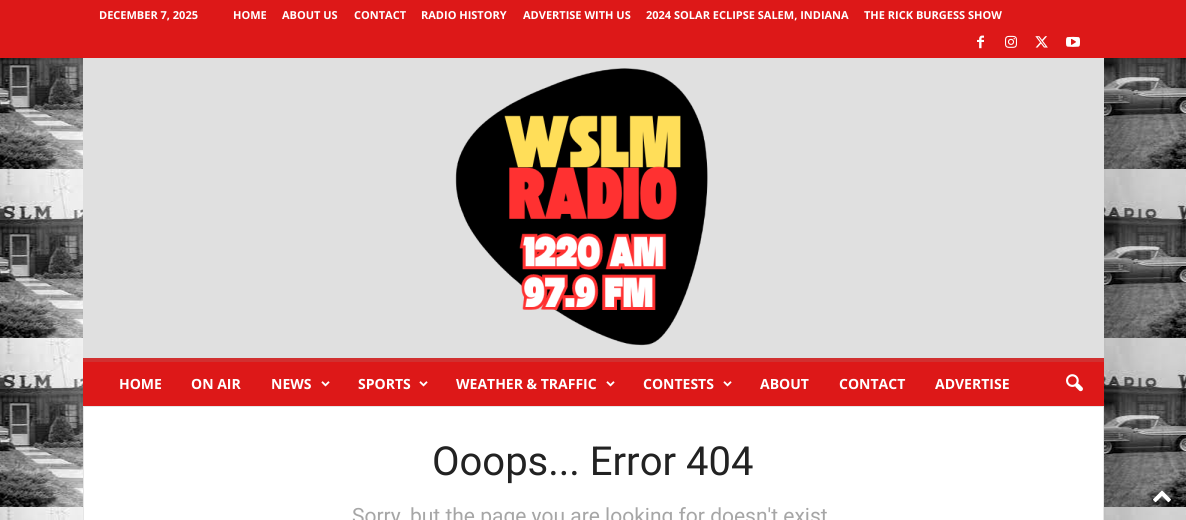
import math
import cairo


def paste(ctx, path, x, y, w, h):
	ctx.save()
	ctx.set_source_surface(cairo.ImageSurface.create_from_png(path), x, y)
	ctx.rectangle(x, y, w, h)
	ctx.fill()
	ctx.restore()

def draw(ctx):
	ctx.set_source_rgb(1, 1, 1)
	ctx.paint()
	paste(ctx, 'media/1.png', 0, 58, 1186, 462)
	ctx.set_source_rgb(0.867, 0.094, 0.094)
	ctx.rectangle(0, 0, 1186, 58)
	ctx.fill()
	ctx.select_font_face('Open Sans', cairo.FONT_SLANT_NORMAL, cairo.FONT_WEIGHT_BOLD)
	ctx.set_font_size(11)
	ctx.set_source_rgb(1, 1, 1)
	for x, y, s in [
		(99, 19, 'DECEMBER 7, 2025'),
		(233, 19, 'HOME'),
		(282, 19, 'ABOUT US'),
		(354, 19, 'CONTACT'),
		(421, 19, 'RADIO HISTORY'),
		(523, 19, 'ADVERTISE WITH US'),
		(646, 19, '2024 SOLAR ECLIPSE SALEM, INDIANA'),
		(864, 19, 'THE RICK BURGESS SHOW'),
	]:
		ctx.move_to(x, y)
		ctx.show_text(s)
	paste(ctx, 'media/2.png', 977, 35, 7, 14)
	paste(ctx, 'media/3.png', 1005, 35, 12, 13)
	paste(ctx, 'media/4.png', 1035, 36, 13, 12)
	paste(ctx, 'media/5.png', 1066, 36, 14, 11)
	ctx.set_source_rgb(0.878, 0.878, 0.878)
	ctx.rectangle(83, 58, 1021, 300)
	ctx.fill()
	paste(ctx, 'media/6.png', 455, 68, 253, 278)
	ctx.set_source_rgb(0.867, 0.094, 0.094)
	ctx.rectangle(83, 362, 1021, 44)
	ctx.fill()
	ctx.set_source_rgb(0.82, 0.188, 0.188)
	ctx.rectangle(83, 358, 1021, 4)
	ctx.fill()
	ctx.set_font_size(14)
	ctx.set_source_rgb(1, 1, 1)
	for x, y, s in [
		(119, 389, 'HOME'),
		(191, 389, 'ON AIR'),
		(271, 389, 'NEWS'),
	]:
		ctx.move_to(x, y)
		ctx.show_text(s)
	paste(ctx, 'media/7.png', 321, 381, 9, 6)
	ctx.move_to(358, 389)
	ctx.show_text('SPORTS')
	paste(ctx, 'media/7.png', 419, 381, 9, 6)
	ctx.move_to(456, 389)
	ctx.show_text('WEATHER & TRAFFIC')
	paste(ctx, 'media/7.png', 606, 381, 9, 6)
	ctx.move_to(643, 389)
	ctx.show_text('CONTESTS')
	paste(ctx, 'media/7.png', 723, 381, 9, 6)
	for x, y, s in [
		(760, 389, 'ABOUT'),
		(839, 389, 'CONTACT'),
		(935, 389, 'ADVERTISE'),
	]:
		ctx.move_to(x, y)
		ctx.show_text(s)
	paste(ctx, 'media/8.png', 1066, 374, 17, 18)
	ctx.set_source_rgb(0.902, 0.902, 0.902)
	ctx.rectangle(83, 406, 1021, 1)
	ctx.fill()
	ctx.set_source_rgb(1, 1, 1)
	ctx.rectangle(84, 407, 1019, 113)
	ctx.fill()
	ctx.set_source_rgb(0.902, 0.902, 0.902)
	ctx.rectangle(83, 407, 1, 113)
	ctx.fill()
	ctx.select_font_face('Roboto')
	ctx.set_font_size(40)
	ctx.set_source_rgb(0.133, 0.133, 0.133)
	ctx.move_to(432, 475)
	ctx.show_text('Ooops... Error 404')
	ctx.set_font_size(21)
	ctx.set_source_rgb(0.651, 0.651, 0.651)
	ctx.move_to(352, 523)
	ctx.show_text('Sorry, but the page you are looking for doesn\'t exist')
	ctx.set_source_rgb(0.902, 0.902, 0.902)
	ctx.rectangle(1103, 407, 1, 113)
	ctx.fill()
	paste(ctx, 'media/9.png', 1153, 490, 18, 13)


surface = cairo.ImageSurface(cairo.FORMAT_RGB24, 1186, 520)
ctx = cairo.Context(surface)
options = cairo.FontOptions()
options.set_hint_metrics(cairo.HINT_METRICS_OFF)
options.set_hint_style(cairo.HINT_STYLE_NONE)
ctx.set_font_options(options)
ctx.set_miter_limit(4)
draw(ctx)
surface.write_to_png('image.png')
